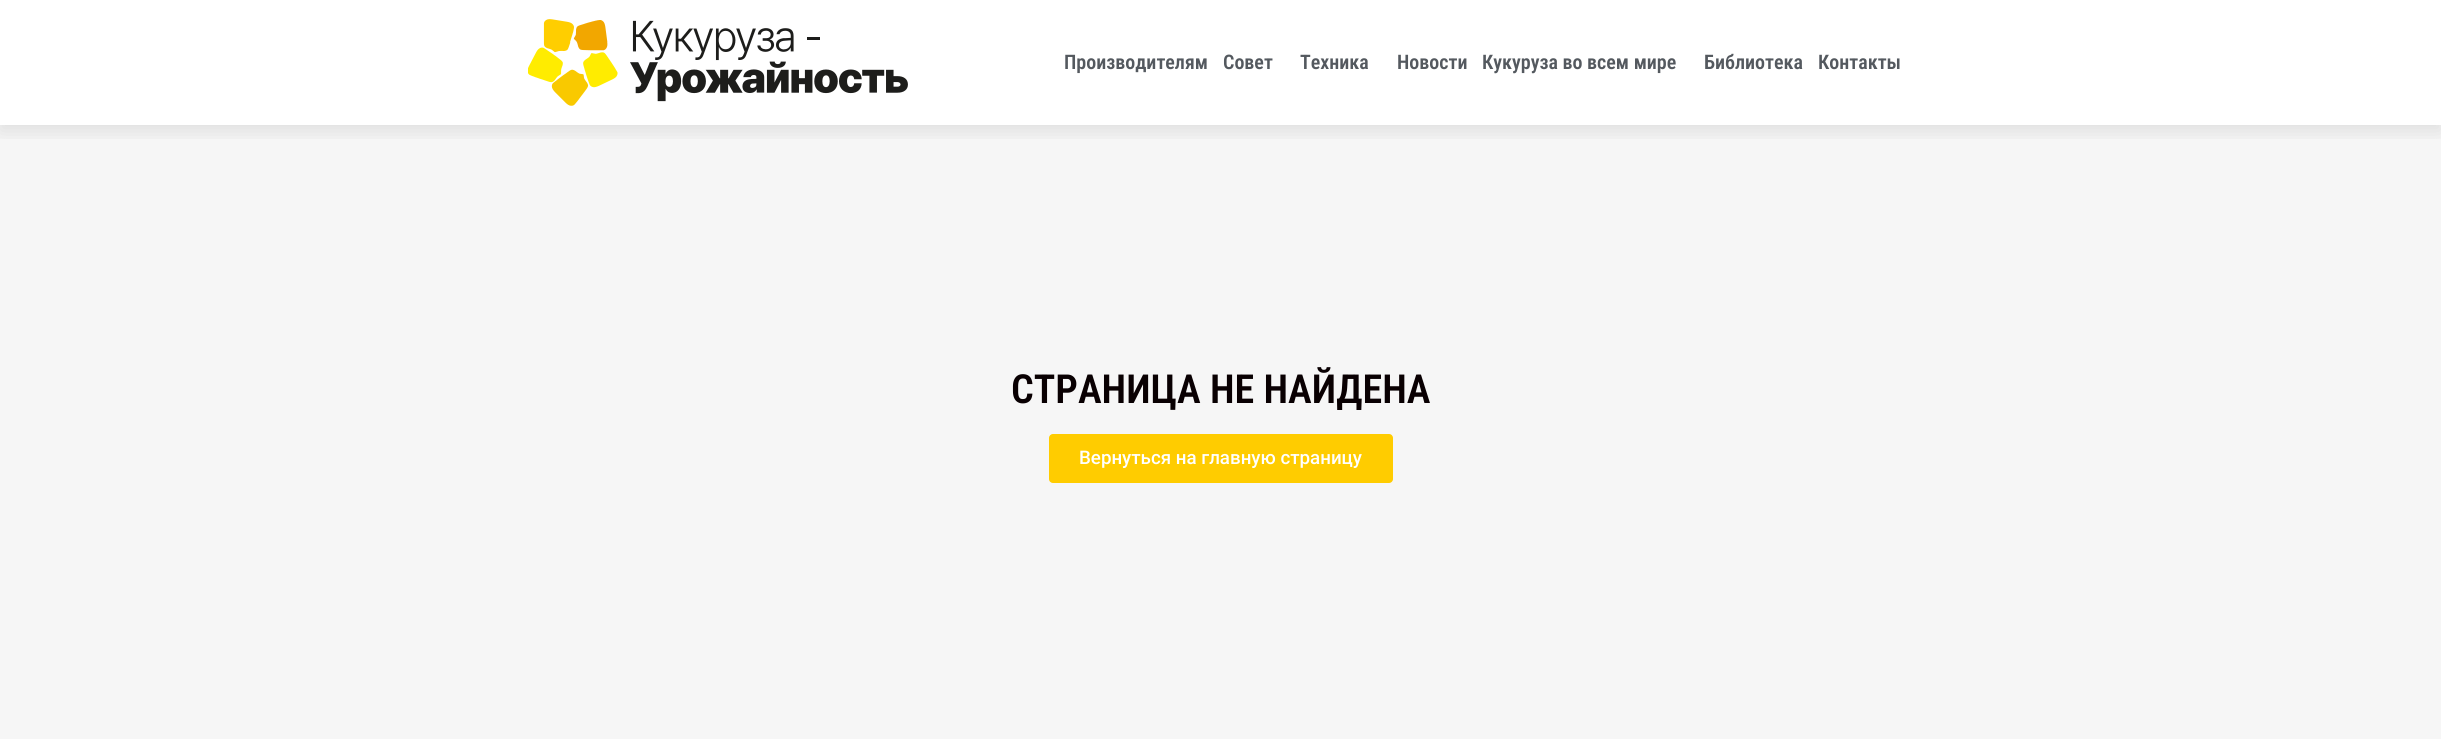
import math
import cairo


def round_path(ctx, x, y, w, h, r):
	ctx.new_sub_path()
	for i, (u, v) in enumerate([(x + w - r, y + h - r), (x + r, y + h - r), (x + r, y + r), (x + w - r, y + r)]):
		ctx.arc(u, v, r, i * math.pi / 2, (i + 1) * math.pi / 2)
	ctx.close_path()

def blur_box(ctx, x, y, w, h, r, blur, alpha):
	ctx.push_group_with_content(cairo.CONTENT_ALPHA)
	ctx.set_operator(cairo.OPERATOR_SOURCE)
	for i in range(15, -16, -2):
		e = blur * i / 6
		if min(w, h) + 2 * e > 0:
			ctx.set_source_rgba(0, 0, 0, alpha * math.erfc((i - 1) / 8.5) / 2)
			round_path(ctx, x - e, y - e, w + 2 * e, h + 2 * e, max(0, min(r + e + blur * .6, min(w, h) / 2 + e)))
			ctx.fill()
	ctx.mask(ctx.pop_group())

def paste(ctx, path, x, y, w, h):
	ctx.save()
	ctx.set_source_surface(cairo.ImageSurface.create_from_png(path), x, y)
	ctx.rectangle(x, y, w, h)
	ctx.fill()
	ctx.restore()

def draw(ctx):
	ctx.set_source_rgb(1, 1, 1)
	ctx.paint()
	ctx.set_source_rgb(0.961, 0.961, 0.961)
	ctx.rectangle(0, 125, 2441, 614)
	ctx.fill()
	ctx.save()
	ctx.rectangle(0, 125, 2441, 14)
	ctx.clip()
	ctx.set_source_rgb(0, 0, 0)
	blur_box(ctx, 0, 6, 2441, 125, 0, 9.5, 0.1)
	ctx.restore()
	paste(ctx, 'media/1.png', 528, 19, 380, 87)
	ctx.select_font_face('Roboto Condensed SemiBold')
	ctx.set_font_size(20)
	ctx.set_source_rgb(0.329, 0.349, 0.373)
	for x, y, s in [
		(1064, 69, 'Производителям'),
		(1223, 69, 'Совет'),
		(1300, 69, 'Tехника'),
		(1397, 69, 'Новости'),
		(1482, 69, 'Кукуруза во всем мире'),
		(1704, 69, 'Библиотека'),
		(1818, 69, 'Контакты'),
	]:
		ctx.move_to(x, y)
		ctx.show_text(s)
	ctx.set_font_size(40)
	ctx.set_source_rgb(0.039, 0, 0.008)
	ctx.move_to(1011, 403)
	ctx.show_text('СТРАНИЦА НЕ НАЙДЕНА')
	ctx.set_source_rgb(1, 0.8, 0)
	round_path(ctx, 1049, 434, 344, 49, 4)
	ctx.fill()
	ctx.select_font_face('Roboto Medium')
	ctx.set_font_size(18.75)
	ctx.set_source_rgb(1, 1, 1)
	ctx.move_to(1079, 464)
	ctx.show_text('Вернуться на главную страницу')


surface = cairo.ImageSurface(cairo.FORMAT_RGB24, 2441, 739)
ctx = cairo.Context(surface)
options = cairo.FontOptions()
options.set_hint_metrics(cairo.HINT_METRICS_OFF)
options.set_hint_style(cairo.HINT_STYLE_NONE)
ctx.set_font_options(options)
ctx.set_miter_limit(4)
draw(ctx)
surface.write_to_png('image.png')
